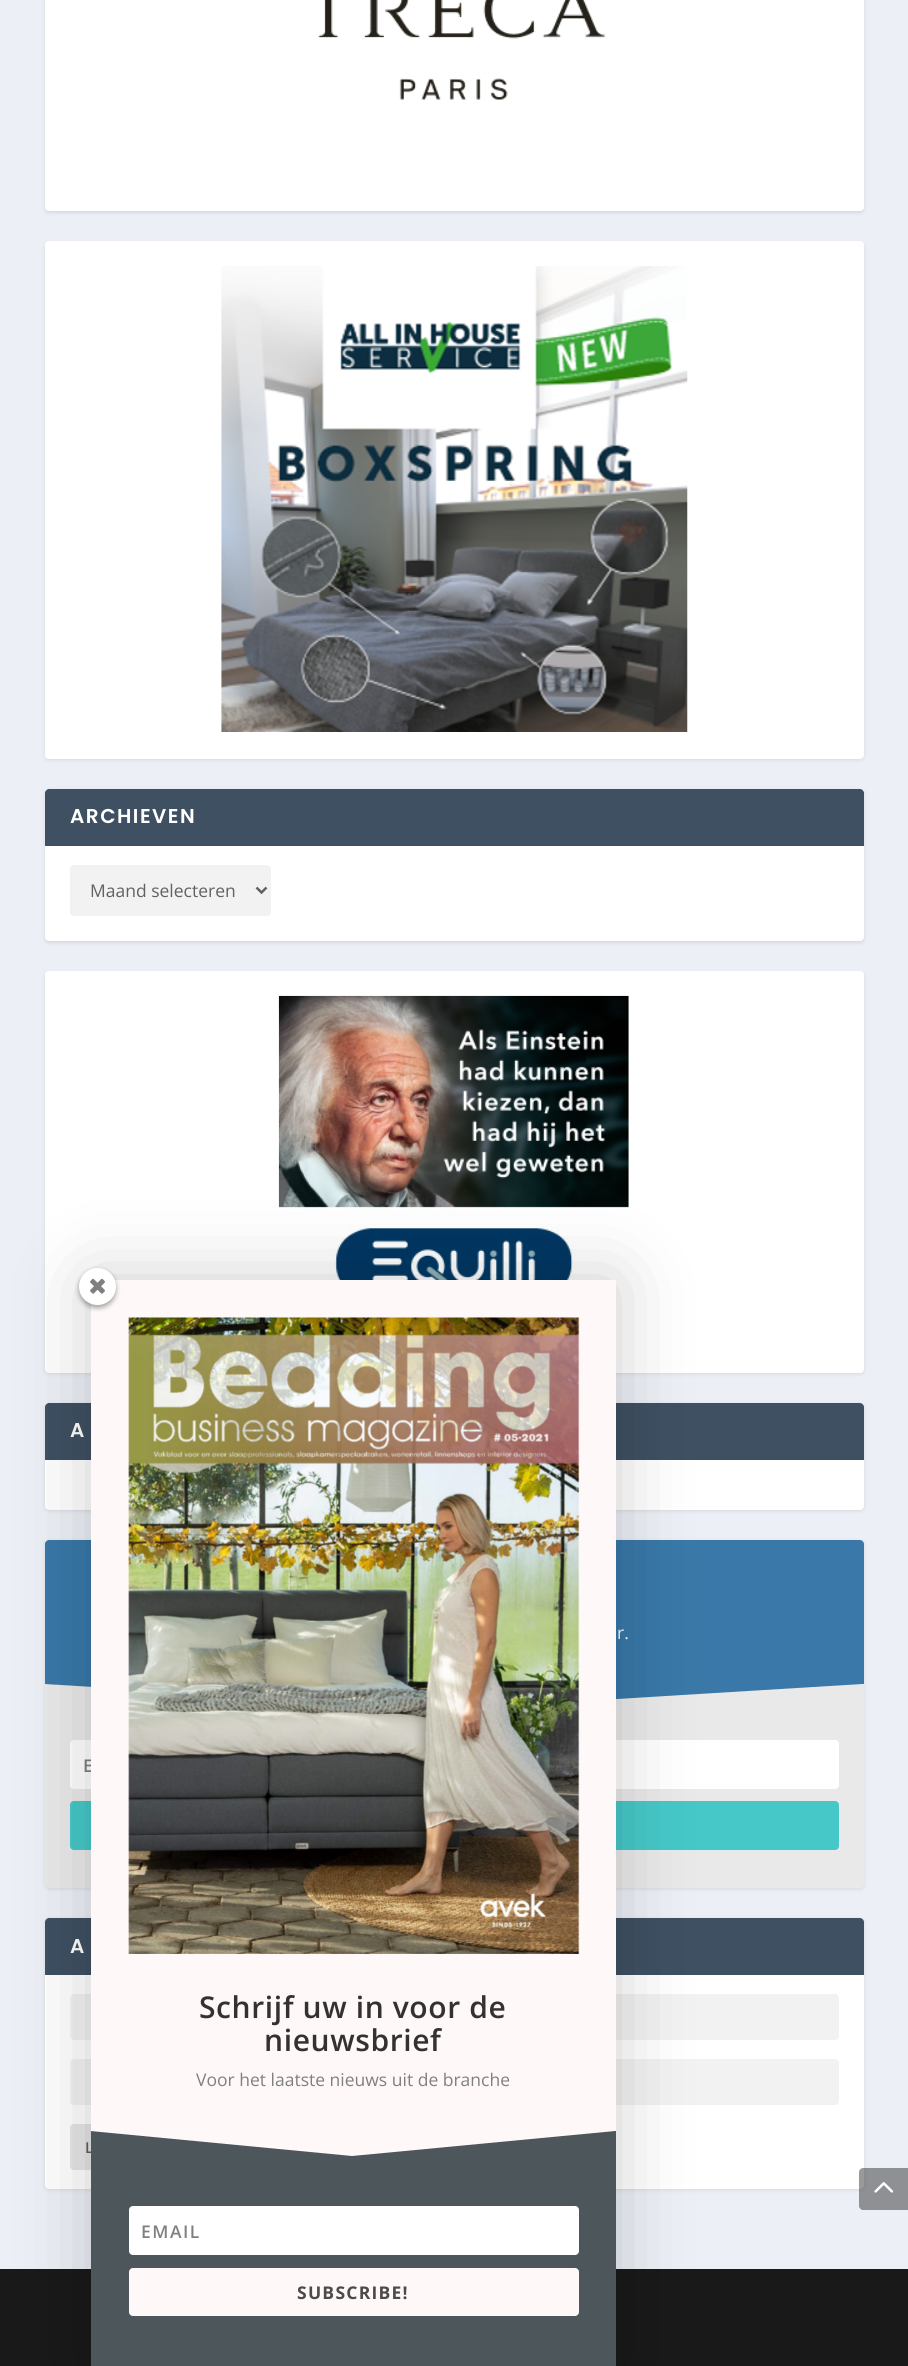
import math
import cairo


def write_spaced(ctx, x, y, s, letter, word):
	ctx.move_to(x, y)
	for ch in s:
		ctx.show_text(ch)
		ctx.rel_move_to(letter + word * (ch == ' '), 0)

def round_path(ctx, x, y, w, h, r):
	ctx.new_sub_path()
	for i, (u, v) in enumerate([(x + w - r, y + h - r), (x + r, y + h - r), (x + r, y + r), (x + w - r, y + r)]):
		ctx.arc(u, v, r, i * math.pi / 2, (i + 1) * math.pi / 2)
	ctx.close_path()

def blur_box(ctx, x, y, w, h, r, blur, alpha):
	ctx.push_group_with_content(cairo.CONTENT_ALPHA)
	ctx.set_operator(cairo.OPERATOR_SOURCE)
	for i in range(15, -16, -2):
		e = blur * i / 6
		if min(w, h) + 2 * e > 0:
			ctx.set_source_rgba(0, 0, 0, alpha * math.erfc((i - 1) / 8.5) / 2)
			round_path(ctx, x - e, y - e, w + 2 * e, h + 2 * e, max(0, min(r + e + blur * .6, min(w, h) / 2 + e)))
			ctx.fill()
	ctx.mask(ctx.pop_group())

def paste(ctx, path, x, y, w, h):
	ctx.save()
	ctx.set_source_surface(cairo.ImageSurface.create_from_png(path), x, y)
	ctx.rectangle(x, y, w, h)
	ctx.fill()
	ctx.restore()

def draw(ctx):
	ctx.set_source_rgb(0.925, 0.941, 0.961)
	ctx.paint()
	ctx.set_source_rgb(0, 0, 0)
	blur_box(ctx, 45, -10, 819, 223, 4, 2, 0.1)
	ctx.set_source_rgb(1, 1, 1)
	round_path(ctx, 45, -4, 819, 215, 4)
	ctx.fill()
	paste(ctx, 'media/1.png', 318, 0, 288, 100)
	ctx.set_source_rgb(0, 0, 0)
	blur_box(ctx, 45, 243, 819, 517, 4, 2, 0.1)
	ctx.set_source_rgb(1, 1, 1)
	round_path(ctx, 45, 241, 819, 518, 4)
	ctx.fill()
	paste(ctx, 'media/2.png', 221, 266, 467, 466)
	ctx.set_source_rgb(0, 0, 0)
	blur_box(ctx, 45, 790, 819, 153, 4, 2, 0.1)
	ctx.set_source_rgb(1, 1, 1)
	round_path(ctx, 45, 789, 819, 152, 4)
	ctx.fill()
	ctx.set_source_rgb(0.243, 0.314, 0.384)
	ctx.new_path()
	ctx.move_to(49, 789)
	ctx.line_to(860, 789)
	ctx.curve_to(862, 789, 864, 791, 864, 793)
	ctx.line_to(864, 846)
	ctx.line_to(45, 846)
	ctx.line_to(45, 793)
	ctx.curve_to(45, 791, 47, 789, 49, 789)
	ctx.close_path()
	ctx.fill()
	ctx.select_font_face('Poppins SemiBold')
	ctx.set_font_size(20)
	ctx.set_source_rgb(1, 1, 1)
	write_spaced(ctx, 70, 823, 'ARCHIEVEN', 1.5, 0)
	ctx.set_source_rgb(0.949, 0.949, 0.949)
	round_path(ctx, 70, 865, 201, 51, 4)
	ctx.fill()
	ctx.new_path()
	ctx.move_to(256.5, 887.5)
	ctx.line_to(261.5, 892.5)
	ctx.line_to(266.5, 887.5)
	ctx.set_source_rgb(0.38, 0.38, 0.38)
	ctx.set_line_width(2.5)
	ctx.stroke()
	ctx.select_font_face('Open Sans')
	ctx.set_font_size(17.5)
	ctx.move_to(90, 897)
	ctx.show_text('Maand selecteren')
	ctx.set_source_rgb(0, 0, 0)
	blur_box(ctx, 45, 973, 819, 401, 4, 2, 0.1)
	ctx.set_source_rgb(1, 1, 1)
	round_path(ctx, 45, 971, 819, 402, 4)
	ctx.fill()
	paste(ctx, 'media/3.png', 278, 995, 351, 330)
	ctx.set_source_rgb(0, 0, 0)
	blur_box(ctx, 45, 1404, 819, 107, 4, 2, 0.1)
	ctx.set_source_rgb(1, 1, 1)
	round_path(ctx, 45, 1403, 819, 107, 4)
	ctx.fill()
	ctx.set_source_rgb(0.243, 0.314, 0.384)
	ctx.new_path()
	ctx.move_to(49, 1403)
	ctx.line_to(860, 1403)
	ctx.curve_to(862, 1403, 864, 1405, 864, 1407)
	ctx.line_to(864, 1460)
	ctx.line_to(45, 1460)
	ctx.line_to(45, 1407)
	ctx.curve_to(45, 1405, 47, 1403, 49, 1403)
	ctx.close_path()
	ctx.fill()
	ctx.select_font_face('Poppins SemiBold')
	ctx.set_font_size(20)
	ctx.set_source_rgb(1, 1, 1)
	write_spaced(ctx, 70, 1437, 'A', 1.5, 0)
	ctx.set_source_rgb(0, 0, 0)
	blur_box(ctx, 45, 1541, 819, 348, 4, 2, 0.1)
	ctx.set_source_rgb(0.224, 0.471, 0.659)
	ctx.new_path()
	ctx.move_to(49, 1540)
	ctx.line_to(860, 1540)
	ctx.curve_to(862, 1540, 864, 1542, 864, 1544)
	ctx.line_to(864, 1684)
	ctx.line_to(45, 1684)
	ctx.line_to(45, 1544)
	ctx.curve_to(45, 1542, 47, 1540, 49, 1540)
	ctx.close_path()
	ctx.fill()
	ctx.select_font_face('Open Sans')
	ctx.set_font_size(17.5)
	ctx.set_source_rgb(1, 1, 1)
	ctx.move_to(617, 1639)
	ctx.show_text('r.')
	ctx.set_source_rgb(0.914, 0.914, 0.914)
	ctx.new_path()
	ctx.move_to(45, 1684)
	ctx.line_to(864, 1684)
	ctx.line_to(864, 1884)
	ctx.curve_to(864, 1886, 862, 1888, 860, 1888)
	ctx.line_to(49, 1888)
	ctx.curve_to(47, 1888, 45, 1886, 45, 1884)
	ctx.close_path()
	ctx.fill()
	ctx.set_source_rgb(0.224, 0.471, 0.659)
	ctx.new_path()
	ctx.move_to(44, 1684)
	ctx.line_to(453, 1709)
	ctx.line_to(862, 1684)
	ctx.close_path()
	ctx.fill()
	ctx.set_source_rgb(1, 1, 1)
	round_path(ctx, 70, 1740, 769, 49, 4)
	ctx.fill()
	ctx.select_font_face('Open Sans SemiBold')
	ctx.set_source_rgb(0.502, 0.502, 0.502)
	write_spaced(ctx, 83, 1772, 'E', 1.5, 0)
	ctx.set_source_rgb(0.275, 0.784, 0.784)
	round_path(ctx, 70, 1801, 769, 49, 4)
	ctx.fill()
	ctx.set_source_rgb(0, 0, 0)
	blur_box(ctx, 45, 1919, 819, 271, 4, 2, 0.1)
	ctx.set_source_rgb(1, 1, 1)
	round_path(ctx, 45, 1918, 819, 271, 4)
	ctx.fill()
	ctx.set_source_rgb(0.243, 0.314, 0.384)
	ctx.new_path()
	ctx.move_to(49, 1918)
	ctx.line_to(860, 1918)
	ctx.curve_to(862, 1918, 864, 1920, 864, 1922)
	ctx.line_to(864, 1975)
	ctx.line_to(45, 1975)
	ctx.line_to(45, 1922)
	ctx.curve_to(45, 1920, 47, 1918, 49, 1918)
	ctx.close_path()
	ctx.fill()
	ctx.select_font_face('Poppins SemiBold')
	ctx.set_font_size(20)
	ctx.set_source_rgb(1, 1, 1)
	write_spaced(ctx, 70, 1953, 'A', 1.5, 0)
	ctx.set_source_rgb(0.949, 0.949, 0.949)
	round_path(ctx, 70, 1994, 769, 46, 4)
	ctx.fill()
	round_path(ctx, 70, 2059, 769, 46, 4)
	ctx.fill()
	ctx.set_source_rgb(0.902, 0.902, 0.902)
	round_path(ctx, 70, 2124, 81, 46, 4)
	ctx.fill()
	ctx.select_font_face('Open Sans SemiBold')
	ctx.set_font_size(15)
	ctx.set_source_rgb(0.38, 0.38, 0.38)
	ctx.move_to(85, 2153)
	ctx.show_text('L')
	ctx.set_source_rgb(0.098, 0.098, 0.098)
	ctx.rectangle(0, 2269, 908, 97)
	ctx.fill()
	ctx.set_source_rgb(0, 0, 0)
	blur_box(ctx, 91, 1280, 525, 1086, 0, 37.5, 0.2)
	ctx.set_source_rgb(1, 0.969, 0.969)
	ctx.rectangle(91, 1280, 525, 851)
	ctx.fill()
	ctx.set_source_rgb(0, 0, 0)
	blur_box(ctx, 79, 1270, 37, 38, 18.5, 2.5, 0.34)
	ctx.set_source_rgb(1, 1, 1)
	ctx.arc(97.5, 1286.5, 18.5, 0, 2 * math.pi)
	ctx.fill()
	paste(ctx, 'media/4.png', 90, 1278, 15, 16)
	paste(ctx, 'media/5.png', 128, 1317, 452, 637)
	ctx.set_font_size(30)
	ctx.set_source_rgb(0.2, 0.192, 0.192)
	write_spaced(ctx, 199, 2018, 'Schrijf uw in voor de', 0.6, 0)
	write_spaced(ctx, 264, 2051, 'nieuwsbrief', 0.6, 0)
	ctx.select_font_face('Open Sans')
	ctx.set_font_size(17.5)
	ctx.set_source_rgb(0.502, 0.502, 0.502)
	ctx.move_to(196, 2086)
	ctx.show_text('Voor het laatste nieuws uit de branche')
	ctx.set_source_rgb(0.302, 0.341, 0.357)
	ctx.rectangle(91, 2131, 525, 235)
	ctx.fill()
	ctx.set_source_rgb(1, 0.969, 0.969)
	ctx.new_path()
	ctx.move_to(90, 2131)
	ctx.line_to(352, 2156)
	ctx.line_to(615, 2131)
	ctx.close_path()
	ctx.fill()
	ctx.set_source_rgb(1, 1, 1)
	round_path(ctx, 129, 2206, 450, 49, 4)
	ctx.fill()
	ctx.select_font_face('Open Sans SemiBold')
	ctx.set_source_rgb(0.502, 0.502, 0.502)
	write_spaced(ctx, 141, 2238, 'EMAIL', 1.5, 0)
	ctx.set_source_rgb(1, 0.969, 0.969)
	round_path(ctx, 129, 2268, 450, 48, 4)
	ctx.fill()
	ctx.select_font_face('Open Sans', cairo.FONT_SLANT_NORMAL, cairo.FONT_WEIGHT_BOLD)
	ctx.set_source_rgb(0.302, 0.29, 0.29)
	write_spaced(ctx, 297, 2299, 'SUBSCRIBE!', 1.25, 0)
	ctx.set_source_rgba(0, 0, 0, 0.4)
	ctx.new_path()
	ctx.move_to(863, 2168)
	ctx.line_to(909, 2168)
	ctx.line_to(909, 2210)
	ctx.line_to(863, 2210)
	ctx.curve_to(861, 2210, 859, 2208, 859, 2206)
	ctx.line_to(859, 2172)
	ctx.curve_to(859, 2170, 861, 2168, 863, 2168)
	ctx.close_path()
	ctx.fill()
	paste(ctx, 'media/6.png', 874, 2182, 20, 11)


surface = cairo.ImageSurface(cairo.FORMAT_RGB24, 908, 2366)
ctx = cairo.Context(surface)
options = cairo.FontOptions()
options.set_hint_metrics(cairo.HINT_METRICS_OFF)
options.set_hint_style(cairo.HINT_STYLE_NONE)
ctx.set_font_options(options)
ctx.set_miter_limit(4)
draw(ctx)
surface.write_to_png('image.png')
